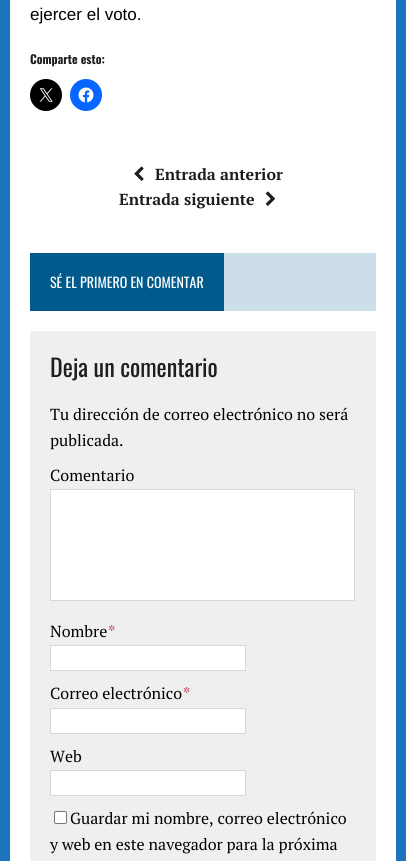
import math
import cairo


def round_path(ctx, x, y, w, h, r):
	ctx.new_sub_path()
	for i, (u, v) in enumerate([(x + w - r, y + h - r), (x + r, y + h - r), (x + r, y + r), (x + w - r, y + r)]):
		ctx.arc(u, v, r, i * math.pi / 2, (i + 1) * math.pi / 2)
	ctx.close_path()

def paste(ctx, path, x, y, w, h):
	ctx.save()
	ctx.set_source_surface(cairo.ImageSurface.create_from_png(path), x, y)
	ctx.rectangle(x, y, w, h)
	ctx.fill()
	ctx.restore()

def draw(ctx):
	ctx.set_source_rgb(0.118, 0.451, 0.745)
	ctx.paint()
	ctx.set_source_rgb(1, 1, 1)
	ctx.rectangle(10, 0, 386, 861)
	ctx.fill()
	ctx.select_font_face('Liberation Sans')
	ctx.set_font_size(17)
	ctx.set_source_rgb(0, 0, 0)
	ctx.move_to(30, 20)
	ctx.show_text('ejercer el voto.')
	ctx.select_font_face('Oswald', cairo.FONT_SLANT_NORMAL, cairo.FONT_WEIGHT_BOLD)
	ctx.set_font_size(12)
	ctx.set_source_rgb(0.122, 0.118, 0.118)
	ctx.move_to(30, 64)
	ctx.show_text('Comparte esto:')
	ctx.set_source_rgb(0, 0, 0)
	ctx.new_path()
	ctx.arc(46, 95, 16, 0, 2 * math.pi)
	ctx.fill()
	paste(ctx, 'media/1.png', 39, 88, 14, 14)
	ctx.set_source_rgb(0.031, 0.4, 1)
	ctx.arc(86, 95, 16, 0, 2 * math.pi)
	ctx.fill()
	paste(ctx, 'media/2.png', 78, 87, 16, 16)
	paste(ctx, 'media/3.png', 134, 166, 10, 15)
	ctx.select_font_face('PT Serif', cairo.FONT_SLANT_NORMAL, cairo.FONT_WEIGHT_BOLD)
	ctx.set_font_size(16)
	ctx.set_source_rgb(0.122, 0.118, 0.118)
	ctx.move_to(155, 180)
	ctx.show_text('Entrada anterior')
	ctx.move_to(119, 205)
	ctx.show_text('Entrada siguiente')
	paste(ctx, 'media/4.png', 265, 191, 10, 15)
	ctx.set_source_rgb(0.8, 0.871, 0.91)
	ctx.rectangle(224, 253, 152, 58)
	ctx.fill()
	ctx.set_source_rgb(0, 0.353, 0.549)
	ctx.rectangle(30, 253, 194, 58)
	ctx.fill()
	ctx.select_font_face('Oswald')
	ctx.set_font_size(14)
	ctx.set_source_rgb(1, 1, 1)
	ctx.move_to(50, 288)
	ctx.show_text('SÉ EL PRIMERO EN COMENTAR')
	ctx.set_source_rgb(0.937, 0.937, 0.937)
	ctx.rectangle(30, 331, 346, 530)
	ctx.fill()
	ctx.set_font_size(24)
	ctx.set_source_rgb(0.122, 0.118, 0.118)
	ctx.move_to(50, 377)
	ctx.show_text('Deja un comentario')
	ctx.select_font_face('PT Serif')
	ctx.set_font_size(16)
	ctx.set_source_rgb(0, 0, 0)
	for x, y, s in [
		(50, 420, 'Tu dirección de correo electrónico no será'),
		(50, 446, 'publicada.'),
		(50, 481, 'Comentario'),
	]:
		ctx.move_to(x, y)
		ctx.show_text(s)
	ctx.set_source_rgb(1, 1, 1)
	ctx.rectangle(50.5, 489.5, 304, 111)
	ctx.fill_preserve()
	ctx.set_source_rgb(0.843, 0.847, 0.847)
	ctx.set_line_width(1)
	ctx.stroke()
	ctx.set_source_rgb(0, 0, 0)
	ctx.move_to(50, 637)
	ctx.show_text('Nombre')
	ctx.set_source_rgb(0.745, 0.157, 0.267)
	ctx.move_to(108, 637)
	ctx.show_text('*')
	ctx.set_source_rgb(1, 1, 1)
	ctx.rectangle(50.5, 645.5, 195, 25)
	ctx.fill_preserve()
	ctx.set_source_rgb(0.843, 0.847, 0.847)
	ctx.stroke()
	ctx.set_source_rgb(0, 0, 0)
	ctx.move_to(50, 699)
	ctx.show_text('Correo electrónico')
	ctx.set_source_rgb(0.745, 0.157, 0.267)
	ctx.move_to(183, 699)
	ctx.show_text('*')
	ctx.set_source_rgb(1, 1, 1)
	ctx.rectangle(50.5, 708.5, 195, 25)
	ctx.fill_preserve()
	ctx.set_source_rgb(0.843, 0.847, 0.847)
	ctx.stroke()
	ctx.set_source_rgb(0, 0, 0)
	ctx.move_to(50, 762)
	ctx.show_text('Web')
	ctx.set_source_rgb(1, 1, 1)
	ctx.rectangle(50.5, 770.5, 195, 25)
	ctx.fill_preserve()
	ctx.set_source_rgb(0.843, 0.847, 0.847)
	ctx.stroke()
	ctx.set_source_rgb(1, 1, 1)
	round_path(ctx, 54.5, 811.5, 12, 12, 1.5)
	ctx.fill_preserve()
	ctx.set_source_rgb(0.463, 0.463, 0.463)
	ctx.stroke()
	ctx.set_source_rgb(0, 0, 0)
	ctx.move_to(70, 824)
	ctx.show_text('Guardar mi nombre, correo electrónico')
	ctx.move_to(50, 850)
	ctx.show_text('y web en este navegador para la próxima')


surface = cairo.ImageSurface(cairo.FORMAT_RGB24, 406, 861)
ctx = cairo.Context(surface)
options = cairo.FontOptions()
options.set_hint_metrics(cairo.HINT_METRICS_OFF)
options.set_hint_style(cairo.HINT_STYLE_NONE)
ctx.set_font_options(options)
ctx.set_miter_limit(4)
draw(ctx)
surface.write_to_png('image.png')
